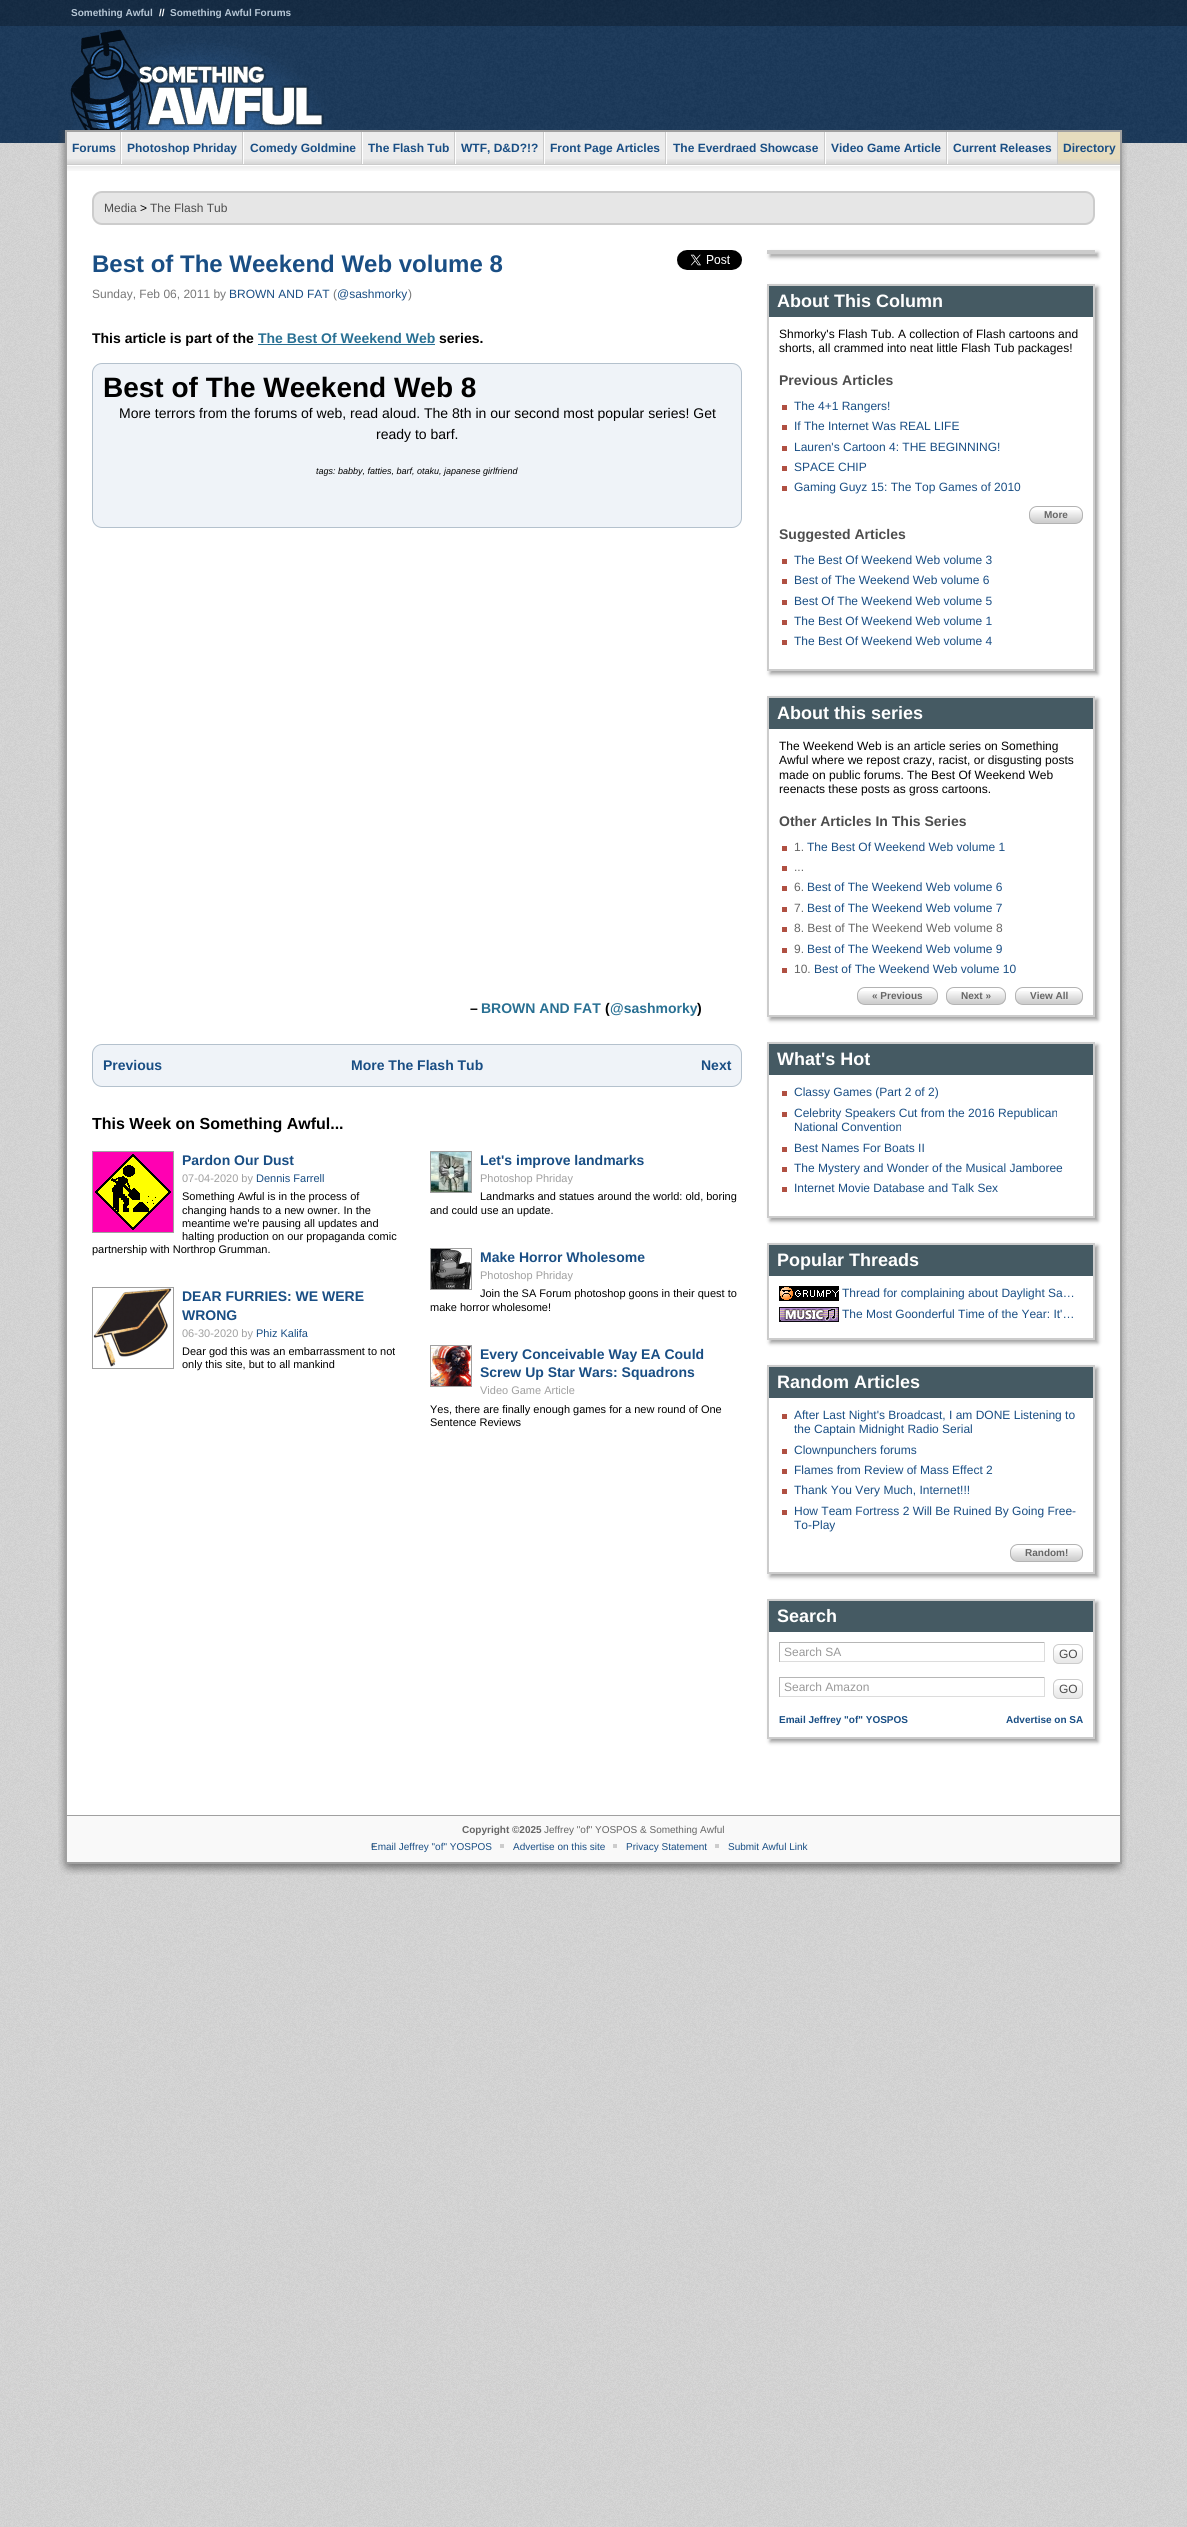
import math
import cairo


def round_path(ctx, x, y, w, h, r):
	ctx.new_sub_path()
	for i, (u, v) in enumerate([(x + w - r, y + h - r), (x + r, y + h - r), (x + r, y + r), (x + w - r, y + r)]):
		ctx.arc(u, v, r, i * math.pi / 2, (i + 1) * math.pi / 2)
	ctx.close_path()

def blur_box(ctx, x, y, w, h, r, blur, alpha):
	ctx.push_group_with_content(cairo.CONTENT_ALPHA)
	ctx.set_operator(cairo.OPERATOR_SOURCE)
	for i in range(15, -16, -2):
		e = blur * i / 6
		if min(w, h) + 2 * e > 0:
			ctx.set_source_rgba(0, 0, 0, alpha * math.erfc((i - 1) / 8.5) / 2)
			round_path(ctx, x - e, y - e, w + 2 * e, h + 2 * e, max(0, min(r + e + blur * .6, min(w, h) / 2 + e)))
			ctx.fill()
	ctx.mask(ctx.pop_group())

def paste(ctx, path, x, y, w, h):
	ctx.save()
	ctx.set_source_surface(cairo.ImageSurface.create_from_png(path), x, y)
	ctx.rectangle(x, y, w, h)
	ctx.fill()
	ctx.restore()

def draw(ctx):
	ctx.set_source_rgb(1, 1, 1)
	ctx.paint()
	paste(ctx, 'media/1.png', 0, 143, 1187, 2384)
	paste(ctx, 'media/2.png', 0, 0, 1187, 143)
	ctx.select_font_face('Liberation Sans', cairo.FONT_SLANT_NORMAL, cairo.FONT_WEIGHT_BOLD)
	ctx.set_font_size(10)
	ctx.set_source_rgb(0.718, 0.78, 0.839)
	ctx.move_to(71, 16)
	ctx.show_text('Something Awful')
	ctx.set_source_rgb(1, 1, 1)
	ctx.move_to(159, 16)
	ctx.show_text('//')
	ctx.set_source_rgb(0.718, 0.78, 0.839)
	ctx.move_to(170, 16)
	ctx.show_text('Something Awful Forums')
	ctx.set_source_rgb(1, 1, 1)
	ctx.rectangle(139, 66, 183, 59)
	ctx.fill()
	paste(ctx, 'media/3.png', 65, 26, 270, 104)
	paste(ctx, 'media/4.png', 58, 130, 1069, 1685)
	ctx.rectangle(67, 165, 1053, 1650)
	ctx.fill()
	ctx.set_source_rgb(0.627, 0.627, 0.627)
	ctx.rectangle(65, 130, 1057, 2)
	ctx.rectangle(1120, 130, 2, 1685)
	ctx.rectangle(65, 130, 2, 1685)
	ctx.fill()
	ctx.set_source_rgb(0.922, 0.922, 0.922)
	ctx.rectangle(67, 132, 990, 32)
	ctx.fill()
	ctx.set_source_rgb(0.8, 0.8, 0.8)
	ctx.rectangle(67, 164, 1053, 1)
	ctx.fill()
	paste(ctx, 'media/5.png', 67, 159, 53, 5)
	ctx.set_font_size(12)
	ctx.set_source_rgb(0.098, 0.306, 0.518)
	ctx.move_to(72, 152)
	ctx.show_text('Forums')
	ctx.set_source_rgb(0.8, 0.8, 0.8)
	ctx.rectangle(120, 132, 1, 32)
	ctx.fill()
	paste(ctx, 'media/6.png', 122, 159, 120, 5)
	ctx.set_source_rgb(1, 1, 1)
	ctx.rectangle(121, 132, 1, 32)
	ctx.fill()
	ctx.set_source_rgb(0.098, 0.306, 0.518)
	ctx.move_to(127, 152)
	ctx.show_text('Photoshop Phriday')
	ctx.set_source_rgb(0.8, 0.8, 0.8)
	ctx.rectangle(242, 132, 1, 32)
	ctx.fill()
	paste(ctx, 'media/7.png', 244, 159, 117, 5)
	ctx.set_source_rgb(1, 1, 1)
	ctx.rectangle(243, 132, 1, 32)
	ctx.fill()
	ctx.set_source_rgb(0.098, 0.306, 0.518)
	ctx.move_to(250, 152)
	ctx.show_text('Comedy Goldmine')
	ctx.set_source_rgb(0.8, 0.8, 0.8)
	ctx.rectangle(361, 132, 1, 32)
	ctx.fill()
	paste(ctx, 'media/8.png', 363, 159, 91, 5)
	ctx.set_source_rgb(1, 1, 1)
	ctx.rectangle(362, 132, 1, 32)
	ctx.fill()
	ctx.set_source_rgb(0.098, 0.306, 0.518)
	ctx.move_to(368, 152)
	ctx.show_text('The Flash Tub')
	ctx.set_source_rgb(0.8, 0.8, 0.8)
	ctx.rectangle(454, 132, 1, 32)
	ctx.fill()
	paste(ctx, 'media/9.png', 456, 159, 87, 5)
	ctx.set_source_rgb(1, 1, 1)
	ctx.rectangle(455, 132, 1, 32)
	ctx.fill()
	ctx.set_source_rgb(0.098, 0.306, 0.518)
	ctx.move_to(461, 152)
	ctx.show_text('WTF, D&D?!?')
	ctx.set_source_rgb(0.8, 0.8, 0.8)
	ctx.rectangle(543, 132, 1, 32)
	ctx.fill()
	paste(ctx, 'media/6.png', 545, 159, 120, 5)
	ctx.set_source_rgb(1, 1, 1)
	ctx.rectangle(544, 132, 1, 32)
	ctx.fill()
	ctx.set_source_rgb(0.098, 0.306, 0.518)
	ctx.move_to(550, 152)
	ctx.show_text('Front Page Articles')
	ctx.set_source_rgb(0.8, 0.8, 0.8)
	ctx.rectangle(665, 132, 1, 32)
	ctx.fill()
	paste(ctx, 'media/10.png', 667, 159, 157, 5)
	ctx.set_source_rgb(1, 1, 1)
	ctx.rectangle(666, 132, 1, 32)
	ctx.fill()
	ctx.set_source_rgb(0.098, 0.306, 0.518)
	ctx.move_to(673, 152)
	ctx.show_text('The Everdraed Showcase')
	ctx.set_source_rgb(0.8, 0.8, 0.8)
	ctx.rectangle(824, 132, 1, 32)
	ctx.fill()
	paste(ctx, 'media/6.png', 826, 159, 120, 5)
	ctx.set_source_rgb(1, 1, 1)
	ctx.rectangle(825, 132, 1, 32)
	ctx.fill()
	ctx.set_source_rgb(0.098, 0.306, 0.518)
	ctx.move_to(831, 152)
	ctx.show_text('Video Game Article')
	ctx.set_source_rgb(0.8, 0.8, 0.8)
	ctx.rectangle(946, 132, 1, 32)
	ctx.fill()
	paste(ctx, 'media/11.png', 948, 159, 109, 5)
	ctx.set_source_rgb(1, 1, 1)
	ctx.rectangle(947, 132, 1, 32)
	ctx.fill()
	ctx.set_source_rgb(0.098, 0.306, 0.518)
	ctx.move_to(953, 152)
	ctx.show_text('Current Releases')
	ctx.set_source_rgb(0.902, 0.863, 0.745)
	ctx.rectangle(1058, 132, 62, 32)
	ctx.fill()
	ctx.set_source_rgb(0.8, 0.8, 0.8)
	ctx.rectangle(1057, 132, 1, 32)
	ctx.fill()
	paste(ctx, 'media/12.png', 1058, 159, 62, 5)
	ctx.set_source_rgb(0.098, 0.306, 0.518)
	ctx.move_to(1063, 152)
	ctx.show_text('Directory')
	paste(ctx, 'media/13.png', 67, 166, 1053, 5)
	ctx.set_source_rgb(0.902, 0.902, 0.902)
	round_path(ctx, 93, 192, 1001, 32, 9)
	ctx.fill_preserve()
	ctx.set_source_rgb(0.8, 0.8, 0.8)
	ctx.stroke()
	ctx.select_font_face('Liberation Sans')
	ctx.set_source_rgb(0.302, 0.302, 0.302)
	ctx.move_to(104, 212)
	ctx.show_text('Media')
	ctx.set_source_rgb(0, 0, 0)
	ctx.move_to(140, 212)
	ctx.show_text('>')
	ctx.set_source_rgb(0.302, 0.302, 0.302)
	ctx.move_to(150, 212)
	ctx.show_text('The Flash Tub')
	ctx.select_font_face('Liberation Sans', cairo.FONT_SLANT_NORMAL, cairo.FONT_WEIGHT_BOLD)
	ctx.set_font_size(24)
	ctx.set_source_rgb(0.098, 0.306, 0.518)
	ctx.move_to(92, 272)
	ctx.show_text('Best of The Weekend Web volume 8')
	ctx.select_font_face('Liberation Sans')
	ctx.set_font_size(12)
	ctx.set_source_rgb(0.467, 0.467, 0.467)
	ctx.move_to(92, 298)
	ctx.show_text('Sunday, Feb 06, 2011 by')
	ctx.set_source_rgb(0.098, 0.306, 0.518)
	ctx.move_to(229, 298)
	ctx.show_text('BROWN AND FAT')
	ctx.set_source_rgb(0.467, 0.467, 0.467)
	ctx.move_to(333, 298)
	ctx.show_text('(')
	ctx.set_source_rgb(0.098, 0.306, 0.518)
	ctx.move_to(337, 298)
	ctx.show_text('@sashmorky')
	ctx.set_source_rgb(0.467, 0.467, 0.467)
	ctx.move_to(408, 298)
	ctx.show_text(')')
	paste(ctx, 'media/14.png', 677, 250, 65, 20)
	ctx.select_font_face('Liberation Sans', cairo.FONT_SLANT_NORMAL, cairo.FONT_WEIGHT_BOLD)
	ctx.set_font_size(14)
	ctx.set_source_rgb(0, 0, 0)
	ctx.move_to(92, 343)
	ctx.show_text('This article is part of the')
	ctx.set_source_rgb(0.161, 0.439, 0.576)
	ctx.move_to(258, 343)
	ctx.show_text('The Best Of Weekend Web')
	ctx.rectangle(258, 344, 177, 1)
	ctx.fill()
	ctx.set_source_rgb(0, 0, 0)
	ctx.move_to(439, 343)
	ctx.show_text('series.')
	ctx.set_source_rgb(0.937, 0.953, 0.969)
	round_path(ctx, 92.5, 363.5, 649, 164, 9.5)
	ctx.fill_preserve()
	ctx.set_source_rgb(0.706, 0.757, 0.804)
	ctx.set_line_width(1)
	ctx.stroke()
	ctx.set_font_size(28)
	ctx.set_source_rgb(0, 0, 0)
	ctx.move_to(103, 397)
	ctx.show_text('Best of The Weekend Web 8')
	ctx.select_font_face('Liberation Sans')
	ctx.set_font_size(14)
	ctx.move_to(119, 418)
	ctx.show_text('More terrors from the forums of web, read aloud. The 8th in our second most popular series! Get')
	ctx.move_to(376, 439)
	ctx.show_text('ready to barf.')
	ctx.select_font_face('Liberation Sans', cairo.FONT_SLANT_ITALIC)
	ctx.set_font_size(9)
	ctx.move_to(316, 474)
	ctx.show_text('tags: babby, fatties, barf, otaku, japanese girlfriend')
	ctx.select_font_face('Liberation Sans', cairo.FONT_SLANT_NORMAL, cairo.FONT_WEIGHT_BOLD)
	ctx.set_font_size(14)
	ctx.move_to(470, 1013)
	ctx.show_text('–')
	ctx.set_source_rgb(0.161, 0.439, 0.576)
	ctx.move_to(481, 1013)
	ctx.show_text('BROWN AND FAT')
	ctx.set_source_rgb(0, 0, 0)
	ctx.move_to(605, 1013)
	ctx.show_text('(')
	ctx.set_source_rgb(0.161, 0.439, 0.576)
	ctx.move_to(610, 1013)
	ctx.show_text('@sashmorky')
	ctx.set_source_rgb(0, 0, 0)
	ctx.move_to(697, 1013)
	ctx.show_text(')')
	ctx.set_source_rgb(0.937, 0.953, 0.969)
	round_path(ctx, 92.5, 1044.5, 649, 42, 9.5)
	ctx.fill_preserve()
	ctx.set_source_rgb(0.706, 0.757, 0.804)
	ctx.stroke()
	ctx.set_source_rgb(0.098, 0.306, 0.518)
	for x, y, s in [
		(103, 1070, 'Previous'),
		(351, 1070, 'More The Flash Tub'),
		(701, 1070, 'Next'),
	]:
		ctx.move_to(x, y)
		ctx.show_text(s)
	ctx.set_font_size(16)
	ctx.set_source_rgb(0, 0, 0)
	ctx.move_to(92, 1129)
	ctx.show_text('This Week on Something Awful...')
	ctx.rectangle(92.5, 1151.5, 81, 81)
	ctx.set_source_rgb(0.627, 0.627, 0.627)
	ctx.stroke()
	paste(ctx, 'media/15.png', 93, 1152, 80, 80)
	ctx.set_font_size(14)
	ctx.set_source_rgb(0.098, 0.306, 0.518)
	ctx.move_to(182, 1165)
	ctx.show_text('Pardon Our Dust')
	ctx.select_font_face('Liberation Sans')
	ctx.set_font_size(11)
	ctx.set_source_rgb(0.627, 0.627, 0.627)
	ctx.move_to(182, 1182)
	ctx.show_text('07-04-2020 by')
	ctx.set_source_rgb(0.098, 0.306, 0.518)
	ctx.move_to(256, 1182)
	ctx.show_text('Dennis Farrell')
	ctx.set_source_rgb(0, 0, 0)
	for x, y, s in [
		(182, 1200, 'Something Awful is in the process of'),
		(182, 1214, 'changing hands to a new owner. In the'),
		(182, 1227, 'meantime we\'re pausing all updates and'),
		(182, 1240, 'halting production on our propaganda comic'),
		(92, 1253, 'partnership with Northrop Grumman.'),
	]:
		ctx.move_to(x, y)
		ctx.show_text(s)
	ctx.rectangle(92.5, 1287.5, 81, 81)
	ctx.set_source_rgb(0.627, 0.627, 0.627)
	ctx.stroke()
	paste(ctx, 'media/16.png', 93, 1288, 79, 79)
	ctx.select_font_face('Liberation Sans', cairo.FONT_SLANT_NORMAL, cairo.FONT_WEIGHT_BOLD)
	ctx.set_font_size(14)
	ctx.set_source_rgb(0.098, 0.306, 0.518)
	ctx.move_to(182, 1301)
	ctx.show_text('DEAR FURRIES: WE WERE')
	ctx.move_to(182, 1320)
	ctx.show_text('WRONG')
	ctx.select_font_face('Liberation Sans')
	ctx.set_font_size(11)
	ctx.set_source_rgb(0.627, 0.627, 0.627)
	ctx.move_to(182, 1337)
	ctx.show_text('06-30-2020 by')
	ctx.set_source_rgb(0.098, 0.306, 0.518)
	ctx.move_to(256, 1337)
	ctx.show_text('Phiz Kalifa')
	ctx.set_source_rgb(0, 0, 0)
	ctx.move_to(182, 1355)
	ctx.show_text('Dear god this was an embarrassment to not')
	ctx.move_to(182, 1368)
	ctx.show_text('only this site, but to all mankind')
	ctx.rectangle(430.5, 1151.5, 41, 41)
	ctx.set_source_rgb(0.627, 0.627, 0.627)
	ctx.stroke()
	paste(ctx, 'media/17.png', 431, 1152, 40, 40)
	ctx.select_font_face('Liberation Sans', cairo.FONT_SLANT_NORMAL, cairo.FONT_WEIGHT_BOLD)
	ctx.set_font_size(14)
	ctx.set_source_rgb(0.098, 0.306, 0.518)
	ctx.move_to(480, 1165)
	ctx.show_text('Let\'s improve landmarks')
	ctx.select_font_face('Liberation Sans')
	ctx.set_font_size(11)
	ctx.set_source_rgb(0.627, 0.627, 0.627)
	ctx.move_to(480, 1182)
	ctx.show_text('Photoshop Phriday')
	ctx.set_source_rgb(0, 0, 0)
	ctx.move_to(480, 1200)
	ctx.show_text('Landmarks and statues around the world: old, boring')
	ctx.move_to(430, 1214)
	ctx.show_text('and could use an update.')
	ctx.rectangle(430.5, 1248.5, 41, 41)
	ctx.set_source_rgb(0.627, 0.627, 0.627)
	ctx.stroke()
	paste(ctx, 'media/18.png', 431, 1249, 40, 40)
	ctx.select_font_face('Liberation Sans', cairo.FONT_SLANT_NORMAL, cairo.FONT_WEIGHT_BOLD)
	ctx.set_font_size(14)
	ctx.set_source_rgb(0.098, 0.306, 0.518)
	ctx.move_to(480, 1262)
	ctx.show_text('Make Horror Wholesome')
	ctx.select_font_face('Liberation Sans')
	ctx.set_font_size(11)
	ctx.set_source_rgb(0.627, 0.627, 0.627)
	ctx.move_to(480, 1279)
	ctx.show_text('Photoshop Phriday')
	ctx.set_source_rgb(0, 0, 0)
	ctx.move_to(480, 1297)
	ctx.show_text('Join the SA Forum photoshop goons in their quest to')
	ctx.move_to(430, 1311)
	ctx.show_text('make horror wholesome!')
	ctx.rectangle(430.5, 1345.5, 41, 41)
	ctx.set_source_rgb(0.627, 0.627, 0.627)
	ctx.stroke()
	paste(ctx, 'media/19.png', 431, 1346, 40, 40)
	ctx.select_font_face('Liberation Sans', cairo.FONT_SLANT_NORMAL, cairo.FONT_WEIGHT_BOLD)
	ctx.set_font_size(14)
	ctx.set_source_rgb(0.098, 0.306, 0.518)
	ctx.move_to(480, 1359)
	ctx.show_text('Every Conceivable Way EA Could')
	ctx.move_to(480, 1377)
	ctx.show_text('Screw Up Star Wars: Squadrons')
	ctx.select_font_face('Liberation Sans')
	ctx.set_font_size(11)
	ctx.set_source_rgb(0.627, 0.627, 0.627)
	ctx.move_to(480, 1394)
	ctx.show_text('Video Game Article')
	ctx.set_source_rgb(0, 0, 0)
	ctx.move_to(430, 1413)
	ctx.show_text('Yes, there are finally enough games for a new round of One')
	ctx.move_to(430, 1426)
	ctx.show_text('Sentence Reviews')
	ctx.set_source_rgb(0.627, 0.627, 0.627)
	blur_box(ctx, 770, 253, 328, 4, 0, 2, 1)
	ctx.set_source_rgb(0.8, 0.8, 0.8)
	ctx.rectangle(767, 250, 328, 4)
	ctx.fill()
	ctx.save()
	ctx.set_fill_rule(cairo.FILL_RULE_EVEN_ODD)
	ctx.new_path()
	ctx.move_to(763, 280)
	ctx.line_to(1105, 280)
	ctx.line_to(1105, 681)
	ctx.line_to(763, 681)
	ctx.close_path()
	ctx.move_to(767, 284)
	ctx.line_to(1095, 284)
	ctx.line_to(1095, 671)
	ctx.line_to(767, 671)
	ctx.close_path()
	ctx.clip()
	ctx.set_source_rgb(0.627, 0.627, 0.627)
	blur_box(ctx, 770, 287, 328, 387, 0, 2, 1)
	ctx.restore()
	ctx.rectangle(768, 285, 326, 385)
	ctx.set_line_width(2)
	ctx.stroke()
	ctx.set_source_rgb(0.271, 0.353, 0.388)
	ctx.rectangle(769, 286, 324, 31)
	ctx.fill()
	ctx.select_font_face('Liberation Sans', cairo.FONT_SLANT_NORMAL, cairo.FONT_WEIGHT_BOLD)
	ctx.set_font_size(18)
	ctx.set_source_rgb(1, 1, 1)
	ctx.move_to(777, 307)
	ctx.show_text('About This Column')
	ctx.select_font_face('Liberation Sans')
	ctx.set_font_size(12)
	ctx.set_source_rgb(0, 0, 0)
	ctx.move_to(779, 338)
	ctx.show_text('Shmorky\'s Flash Tub. A collection of Flash cartoons and')
	ctx.move_to(779, 352)
	ctx.show_text('shorts, all crammed into neat little Flash Tub packages!')
	ctx.select_font_face('Liberation Sans', cairo.FONT_SLANT_NORMAL, cairo.FONT_WEIGHT_BOLD)
	ctx.set_font_size(14)
	ctx.set_source_rgb(0.302, 0.302, 0.302)
	ctx.move_to(779, 385)
	ctx.show_text('Previous Articles')
	ctx.set_source_rgb(0.69, 0.314, 0.259)
	ctx.rectangle(782, 405, 5, 5)
	ctx.fill()
	ctx.select_font_face('Liberation Sans')
	ctx.set_font_size(12)
	ctx.set_source_rgb(0.098, 0.306, 0.518)
	ctx.move_to(794, 410)
	ctx.show_text('The 4+1 Rangers!')
	ctx.set_source_rgb(0.69, 0.314, 0.259)
	ctx.rectangle(782, 425, 5, 5)
	ctx.fill()
	ctx.set_source_rgb(0.098, 0.306, 0.518)
	ctx.move_to(794, 430)
	ctx.show_text('If The Internet Was REAL LIFE')
	ctx.set_source_rgb(0.69, 0.314, 0.259)
	ctx.rectangle(782, 446, 5, 5)
	ctx.fill()
	ctx.set_source_rgb(0.098, 0.306, 0.518)
	ctx.move_to(794, 451)
	ctx.show_text('Lauren\'s Cartoon 4: THE BEGINNING!')
	ctx.set_source_rgb(0.69, 0.314, 0.259)
	ctx.rectangle(782, 466, 5, 5)
	ctx.fill()
	ctx.set_source_rgb(0.098, 0.306, 0.518)
	ctx.move_to(794, 471)
	ctx.show_text('SPACE CHIP')
	ctx.set_source_rgb(0.69, 0.314, 0.259)
	ctx.rectangle(782, 486, 5, 5)
	ctx.fill()
	ctx.set_source_rgb(0.098, 0.306, 0.518)
	ctx.move_to(794, 491)
	ctx.show_text('Gaming Guyz 15: The Top Games of 2010')
	paste(ctx, 'media/20.png', 1029, 510, 54, 13)
	round_path(ctx, 1029.5, 506.5, 53, 17, 7.5)
	ctx.set_source_rgb(0.702, 0.702, 0.702)
	ctx.set_line_width(1)
	ctx.stroke()
	ctx.select_font_face('Liberation Sans', cairo.FONT_SLANT_NORMAL, cairo.FONT_WEIGHT_BOLD)
	ctx.set_font_size(10)
	ctx.set_source_rgb(0.4, 0.4, 0.4)
	ctx.move_to(1044, 518)
	ctx.show_text('More')
	ctx.set_font_size(14)
	ctx.set_source_rgb(0.302, 0.302, 0.302)
	ctx.move_to(779, 539)
	ctx.show_text('Suggested Articles')
	ctx.set_source_rgb(0.69, 0.314, 0.259)
	ctx.rectangle(782, 559, 5, 5)
	ctx.fill()
	ctx.select_font_face('Liberation Sans')
	ctx.set_font_size(12)
	ctx.set_source_rgb(0.098, 0.306, 0.518)
	ctx.move_to(794, 564)
	ctx.show_text('The Best Of Weekend Web volume 3')
	ctx.set_source_rgb(0.69, 0.314, 0.259)
	ctx.rectangle(782, 579, 5, 5)
	ctx.fill()
	ctx.set_source_rgb(0.098, 0.306, 0.518)
	ctx.move_to(794, 584)
	ctx.show_text('Best of The Weekend Web volume 6')
	ctx.set_source_rgb(0.69, 0.314, 0.259)
	ctx.rectangle(782, 600, 5, 5)
	ctx.fill()
	ctx.set_source_rgb(0.098, 0.306, 0.518)
	ctx.move_to(794, 605)
	ctx.show_text('Best Of The Weekend Web volume 5')
	ctx.set_source_rgb(0.69, 0.314, 0.259)
	ctx.rectangle(782, 620, 5, 5)
	ctx.fill()
	ctx.set_source_rgb(0.098, 0.306, 0.518)
	ctx.move_to(794, 625)
	ctx.show_text('The Best Of Weekend Web volume 1')
	ctx.set_source_rgb(0.69, 0.314, 0.259)
	ctx.rectangle(782, 640, 5, 5)
	ctx.fill()
	ctx.set_source_rgb(0.098, 0.306, 0.518)
	ctx.move_to(794, 645)
	ctx.show_text('The Best Of Weekend Web volume 4')
	ctx.save()
	ctx.set_fill_rule(cairo.FILL_RULE_EVEN_ODD)
	ctx.new_path()
	ctx.move_to(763, 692)
	ctx.line_to(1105, 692)
	ctx.line_to(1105, 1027)
	ctx.line_to(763, 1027)
	ctx.close_path()
	ctx.move_to(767, 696)
	ctx.line_to(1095, 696)
	ctx.line_to(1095, 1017)
	ctx.line_to(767, 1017)
	ctx.close_path()
	ctx.clip()
	ctx.set_source_rgb(0.627, 0.627, 0.627)
	blur_box(ctx, 770, 699, 328, 321, 0, 2, 1)
	ctx.restore()
	ctx.rectangle(768, 697, 326, 319)
	ctx.set_source_rgb(0.8, 0.8, 0.8)
	ctx.set_line_width(2)
	ctx.stroke()
	ctx.set_source_rgb(0.271, 0.353, 0.388)
	ctx.rectangle(769, 698, 324, 31)
	ctx.fill()
	ctx.select_font_face('Liberation Sans', cairo.FONT_SLANT_NORMAL, cairo.FONT_WEIGHT_BOLD)
	ctx.set_font_size(18)
	ctx.set_source_rgb(1, 1, 1)
	ctx.move_to(777, 719)
	ctx.show_text('About this series')
	ctx.select_font_face('Liberation Sans')
	ctx.set_font_size(12)
	ctx.set_source_rgb(0, 0, 0)
	for x, y, s in [
		(779, 750, 'The Weekend Web is an article series on Something'),
		(779, 764, 'Awful where we repost crazy, racist, or disgusting posts'),
		(779, 779, 'made on public forums. The Best Of Weekend Web'),
		(779, 793, 'reenacts these posts as gross cartoons.'),
	]:
		ctx.move_to(x, y)
		ctx.show_text(s)
	ctx.select_font_face('Liberation Sans', cairo.FONT_SLANT_NORMAL, cairo.FONT_WEIGHT_BOLD)
	ctx.set_font_size(14)
	ctx.set_source_rgb(0.302, 0.302, 0.302)
	ctx.move_to(779, 826)
	ctx.show_text('Other Articles In This Series')
	ctx.set_source_rgb(0.69, 0.314, 0.259)
	ctx.rectangle(782, 846, 5, 5)
	ctx.fill()
	ctx.select_font_face('Liberation Sans')
	ctx.set_font_size(12)
	ctx.set_source_rgb(0.4, 0.4, 0.4)
	ctx.move_to(794, 851)
	ctx.show_text('1.')
	ctx.set_source_rgb(0.098, 0.306, 0.518)
	ctx.move_to(807, 851)
	ctx.show_text('The Best Of Weekend Web volume 1')
	ctx.set_source_rgb(0.69, 0.314, 0.259)
	ctx.rectangle(782, 866, 5, 5)
	ctx.fill()
	ctx.set_source_rgb(0.4, 0.4, 0.4)
	ctx.move_to(794, 871)
	ctx.show_text('...')
	ctx.set_source_rgb(0.69, 0.314, 0.259)
	ctx.rectangle(782, 886, 5, 5)
	ctx.fill()
	ctx.set_source_rgb(0.4, 0.4, 0.4)
	ctx.move_to(794, 891)
	ctx.show_text('6.')
	ctx.set_source_rgb(0.098, 0.306, 0.518)
	ctx.move_to(807, 891)
	ctx.show_text('Best of The Weekend Web volume 6')
	ctx.set_source_rgb(0.69, 0.314, 0.259)
	ctx.rectangle(782, 907, 5, 5)
	ctx.fill()
	ctx.set_source_rgb(0.4, 0.4, 0.4)
	ctx.move_to(794, 912)
	ctx.show_text('7.')
	ctx.set_source_rgb(0.098, 0.306, 0.518)
	ctx.move_to(807, 912)
	ctx.show_text('Best of The Weekend Web volume 7')
	ctx.set_source_rgb(0.69, 0.314, 0.259)
	ctx.rectangle(782, 927, 5, 5)
	ctx.fill()
	ctx.set_source_rgb(0.4, 0.4, 0.4)
	ctx.move_to(794, 932)
	ctx.show_text('8. Best of The Weekend Web volume 8')
	ctx.set_source_rgb(0.69, 0.314, 0.259)
	ctx.rectangle(782, 948, 5, 5)
	ctx.fill()
	ctx.set_source_rgb(0.4, 0.4, 0.4)
	ctx.move_to(794, 953)
	ctx.show_text('9.')
	ctx.set_source_rgb(0.098, 0.306, 0.518)
	ctx.move_to(807, 953)
	ctx.show_text('Best of The Weekend Web volume 9')
	ctx.set_source_rgb(0.69, 0.314, 0.259)
	ctx.rectangle(782, 968, 5, 5)
	ctx.fill()
	ctx.set_source_rgb(0.4, 0.4, 0.4)
	ctx.move_to(794, 973)
	ctx.show_text('10.')
	ctx.set_source_rgb(0.098, 0.306, 0.518)
	ctx.move_to(814, 973)
	ctx.show_text('Best of The Weekend Web volume 10')
	paste(ctx, 'media/21.png', 857, 991, 81, 13)
	round_path(ctx, 857.5, 987.5, 80, 17, 7.5)
	ctx.set_source_rgb(0.702, 0.702, 0.702)
	ctx.set_line_width(1)
	ctx.stroke()
	ctx.select_font_face('Liberation Sans', cairo.FONT_SLANT_NORMAL, cairo.FONT_WEIGHT_BOLD)
	ctx.set_font_size(10)
	ctx.set_source_rgb(0.4, 0.4, 0.4)
	ctx.move_to(872, 999)
	ctx.show_text('« Previous')
	paste(ctx, 'media/22.png', 946, 991, 60, 13)
	round_path(ctx, 946.5, 987.5, 59, 17, 7.5)
	ctx.set_source_rgb(0.702, 0.702, 0.702)
	ctx.stroke()
	ctx.set_source_rgb(0.4, 0.4, 0.4)
	ctx.move_to(961, 999)
	ctx.show_text('Next »')
	paste(ctx, 'media/23.png', 1015, 991, 68, 13)
	round_path(ctx, 1015.5, 987.5, 67, 17, 7.5)
	ctx.set_source_rgb(0.702, 0.702, 0.702)
	ctx.stroke()
	ctx.set_source_rgb(0.4, 0.4, 0.4)
	ctx.move_to(1030, 999)
	ctx.show_text('View All')
	ctx.save()
	ctx.set_fill_rule(cairo.FILL_RULE_EVEN_ODD)
	ctx.new_path()
	ctx.move_to(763, 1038)
	ctx.line_to(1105, 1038)
	ctx.line_to(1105, 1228)
	ctx.line_to(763, 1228)
	ctx.close_path()
	ctx.move_to(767, 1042)
	ctx.line_to(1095, 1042)
	ctx.line_to(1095, 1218)
	ctx.line_to(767, 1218)
	ctx.close_path()
	ctx.clip()
	ctx.set_source_rgb(0.627, 0.627, 0.627)
	blur_box(ctx, 770, 1045, 328, 176, 0, 2, 1)
	ctx.restore()
	ctx.rectangle(768, 1043, 326, 174)
	ctx.set_source_rgb(0.8, 0.8, 0.8)
	ctx.set_line_width(2)
	ctx.stroke()
	ctx.set_source_rgb(0.271, 0.353, 0.388)
	ctx.rectangle(769, 1044, 324, 31)
	ctx.fill()
	ctx.set_font_size(18)
	ctx.set_source_rgb(1, 1, 1)
	ctx.move_to(777, 1065)
	ctx.show_text('What\'s Hot')
	ctx.set_source_rgb(0.69, 0.314, 0.259)
	ctx.rectangle(782, 1091, 5, 5)
	ctx.fill()
	ctx.select_font_face('Liberation Sans')
	ctx.set_font_size(12)
	ctx.set_source_rgb(0.098, 0.306, 0.518)
	ctx.move_to(794, 1096)
	ctx.show_text('Classy Games (Part 2 of 2)')
	ctx.set_source_rgb(0.69, 0.314, 0.259)
	ctx.rectangle(782, 1112, 5, 5)
	ctx.fill()
	ctx.set_source_rgb(0.098, 0.306, 0.518)
	ctx.move_to(794, 1117)
	ctx.show_text('Celebrity Speakers Cut from the 2016 Republican')
	ctx.move_to(794, 1131)
	ctx.show_text('National Convention')
	ctx.set_source_rgb(0.69, 0.314, 0.259)
	ctx.rectangle(782, 1147, 5, 5)
	ctx.fill()
	ctx.set_source_rgb(0.098, 0.306, 0.518)
	ctx.move_to(794, 1152)
	ctx.show_text('Best Names For Boats II')
	ctx.set_source_rgb(0.69, 0.314, 0.259)
	ctx.rectangle(782, 1167, 5, 5)
	ctx.fill()
	ctx.set_source_rgb(0.098, 0.306, 0.518)
	ctx.move_to(794, 1172)
	ctx.show_text('The Mystery and Wonder of the Musical Jamboree')
	ctx.set_source_rgb(0.69, 0.314, 0.259)
	ctx.rectangle(782, 1187, 5, 5)
	ctx.fill()
	ctx.set_source_rgb(0.098, 0.306, 0.518)
	ctx.move_to(794, 1192)
	ctx.show_text('Internet Movie Database and Talk Sex')
	ctx.save()
	ctx.set_fill_rule(cairo.FILL_RULE_EVEN_ODD)
	ctx.new_path()
	ctx.move_to(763, 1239)
	ctx.line_to(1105, 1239)
	ctx.line_to(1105, 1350)
	ctx.line_to(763, 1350)
	ctx.close_path()
	ctx.move_to(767, 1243)
	ctx.line_to(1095, 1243)
	ctx.line_to(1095, 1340)
	ctx.line_to(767, 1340)
	ctx.close_path()
	ctx.clip()
	ctx.set_source_rgb(0.627, 0.627, 0.627)
	blur_box(ctx, 770, 1246, 328, 97, 0, 2, 1)
	ctx.restore()
	ctx.rectangle(768, 1244, 326, 95)
	ctx.set_source_rgb(0.8, 0.8, 0.8)
	ctx.stroke()
	ctx.set_source_rgb(0.271, 0.353, 0.388)
	ctx.rectangle(769, 1245, 324, 31)
	ctx.fill()
	ctx.select_font_face('Liberation Sans', cairo.FONT_SLANT_NORMAL, cairo.FONT_WEIGHT_BOLD)
	ctx.set_font_size(18)
	ctx.set_source_rgb(1, 1, 1)
	ctx.move_to(777, 1266)
	ctx.show_text('Popular Threads')
	paste(ctx, 'media/24.png', 779, 1286, 60, 15)
	ctx.select_font_face('Liberation Sans')
	ctx.set_font_size(12)
	ctx.set_source_rgb(0.098, 0.306, 0.518)
	ctx.move_to(842, 1297)
	ctx.show_text('Thread for complaining about Daylight Sa…')
	paste(ctx, 'media/25.png', 779, 1307, 60, 15)
	ctx.move_to(842, 1318)
	ctx.show_text('The Most Goonderful Time of the Year: It\'…')
	ctx.save()
	ctx.set_fill_rule(cairo.FILL_RULE_EVEN_ODD)
	ctx.new_path()
	ctx.move_to(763, 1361)
	ctx.line_to(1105, 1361)
	ctx.line_to(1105, 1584)
	ctx.line_to(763, 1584)
	ctx.close_path()
	ctx.move_to(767, 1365)
	ctx.line_to(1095, 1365)
	ctx.line_to(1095, 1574)
	ctx.line_to(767, 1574)
	ctx.close_path()
	ctx.clip()
	ctx.set_source_rgb(0.627, 0.627, 0.627)
	blur_box(ctx, 770, 1368, 328, 209, 0, 2, 1)
	ctx.restore()
	ctx.rectangle(768, 1366, 326, 207)
	ctx.set_source_rgb(0.8, 0.8, 0.8)
	ctx.stroke()
	ctx.set_source_rgb(0.271, 0.353, 0.388)
	ctx.rectangle(769, 1367, 324, 31)
	ctx.fill()
	ctx.select_font_face('Liberation Sans', cairo.FONT_SLANT_NORMAL, cairo.FONT_WEIGHT_BOLD)
	ctx.set_font_size(18)
	ctx.set_source_rgb(1, 1, 1)
	ctx.move_to(777, 1388)
	ctx.show_text('Random Articles')
	ctx.set_source_rgb(0.69, 0.314, 0.259)
	ctx.rectangle(782, 1414, 5, 5)
	ctx.fill()
	ctx.select_font_face('Liberation Sans')
	ctx.set_font_size(12)
	ctx.set_source_rgb(0.098, 0.306, 0.518)
	ctx.move_to(794, 1419)
	ctx.show_text('After Last Night\'s Broadcast, I am DONE Listening to')
	ctx.move_to(794, 1433)
	ctx.show_text('the Captain Midnight Radio Serial')
	ctx.set_source_rgb(0.69, 0.314, 0.259)
	ctx.rectangle(782, 1449, 5, 5)
	ctx.fill()
	ctx.set_source_rgb(0.098, 0.306, 0.518)
	ctx.move_to(794, 1454)
	ctx.show_text('Clownpunchers forums')
	ctx.set_source_rgb(0.69, 0.314, 0.259)
	ctx.rectangle(782, 1469, 5, 5)
	ctx.fill()
	ctx.set_source_rgb(0.098, 0.306, 0.518)
	ctx.move_to(794, 1474)
	ctx.show_text('Flames from Review of Mass Effect 2')
	ctx.set_source_rgb(0.69, 0.314, 0.259)
	ctx.rectangle(782, 1489, 5, 5)
	ctx.fill()
	ctx.set_source_rgb(0.098, 0.306, 0.518)
	ctx.move_to(794, 1494)
	ctx.show_text('Thank You Very Much, Internet!!!')
	ctx.set_source_rgb(0.69, 0.314, 0.259)
	ctx.rectangle(782, 1510, 5, 5)
	ctx.fill()
	ctx.set_source_rgb(0.098, 0.306, 0.518)
	ctx.move_to(794, 1515)
	ctx.show_text('How Team Fortress 2 Will Be Ruined By Going Free-')
	ctx.move_to(794, 1529)
	ctx.show_text('To-Play')
	paste(ctx, 'media/26.png', 1010, 1548, 73, 13)
	round_path(ctx, 1010.5, 1544.5, 72, 17, 7.5)
	ctx.set_source_rgb(0.702, 0.702, 0.702)
	ctx.set_line_width(1)
	ctx.stroke()
	ctx.select_font_face('Liberation Sans', cairo.FONT_SLANT_NORMAL, cairo.FONT_WEIGHT_BOLD)
	ctx.set_font_size(10)
	ctx.set_source_rgb(0.4, 0.4, 0.4)
	ctx.move_to(1025, 1556)
	ctx.show_text('Random!')
	ctx.save()
	ctx.set_fill_rule(cairo.FILL_RULE_EVEN_ODD)
	ctx.new_path()
	ctx.move_to(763, 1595)
	ctx.line_to(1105, 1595)
	ctx.line_to(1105, 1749)
	ctx.line_to(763, 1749)
	ctx.close_path()
	ctx.move_to(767, 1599)
	ctx.line_to(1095, 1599)
	ctx.line_to(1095, 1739)
	ctx.line_to(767, 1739)
	ctx.close_path()
	ctx.clip()
	ctx.set_source_rgb(0.627, 0.627, 0.627)
	blur_box(ctx, 770, 1602, 328, 140, 0, 2, 1)
	ctx.restore()
	ctx.rectangle(768, 1600, 326, 138)
	ctx.set_source_rgb(0.8, 0.8, 0.8)
	ctx.set_line_width(2)
	ctx.stroke()
	ctx.set_source_rgb(0.271, 0.353, 0.388)
	ctx.rectangle(769, 1601, 324, 31)
	ctx.fill()
	ctx.set_font_size(18)
	ctx.set_source_rgb(1, 1, 1)
	ctx.move_to(777, 1622)
	ctx.show_text('Search')
	ctx.set_source_rgb(0.714, 0.714, 0.714)
	ctx.rectangle(779, 1642, 266, 1)
	ctx.fill()
	ctx.set_source_rgb(0.863, 0.863, 0.863)
	ctx.rectangle(1044, 1642, 1, 20)
	ctx.rectangle(779, 1661, 266, 1)
	ctx.fill()
	ctx.set_source_rgb(0.714, 0.714, 0.714)
	ctx.rectangle(779, 1642, 1, 20)
	ctx.fill()
	ctx.select_font_face('Liberation Sans')
	ctx.set_font_size(12)
	ctx.set_source_rgb(0.6, 0.6, 0.6)
	ctx.move_to(784, 1656)
	ctx.show_text('Search SA')
	paste(ctx, 'media/27.png', 1053, 1650, 30, 14)
	round_path(ctx, 1053.5, 1644.5, 29, 19, 5.5)
	ctx.set_source_rgb(0.8, 0.8, 0.8)
	ctx.set_line_width(1)
	ctx.stroke()
	ctx.set_source_rgb(0.302, 0.302, 0.302)
	ctx.move_to(1059, 1658)
	ctx.show_text('GO')
	ctx.set_source_rgb(0.714, 0.714, 0.714)
	ctx.rectangle(779, 1677, 266, 1)
	ctx.fill()
	ctx.set_source_rgb(0.863, 0.863, 0.863)
	ctx.rectangle(1044, 1677, 1, 20)
	ctx.rectangle(779, 1696, 266, 1)
	ctx.fill()
	ctx.set_source_rgb(0.714, 0.714, 0.714)
	ctx.rectangle(779, 1677, 1, 20)
	ctx.fill()
	ctx.set_source_rgb(0.6, 0.6, 0.6)
	ctx.move_to(784, 1691)
	ctx.show_text('Search Amazon')
	paste(ctx, 'media/27.png', 1053, 1685, 30, 14)
	round_path(ctx, 1053.5, 1679.5, 29, 19, 5.5)
	ctx.set_source_rgb(0.8, 0.8, 0.8)
	ctx.stroke()
	ctx.set_source_rgb(0.302, 0.302, 0.302)
	ctx.move_to(1059, 1693)
	ctx.show_text('GO')
	ctx.select_font_face('Liberation Sans', cairo.FONT_SLANT_NORMAL, cairo.FONT_WEIGHT_BOLD)
	ctx.set_font_size(10)
	ctx.set_source_rgb(0.098, 0.306, 0.518)
	ctx.move_to(779, 1723)
	ctx.show_text('Email Jeffrey "of" YOSPOS')
	ctx.move_to(1006, 1723)
	ctx.show_text('Advertise on SA')
	paste(ctx, 'media/28.png', 58, 1815, 1069, 60)
	ctx.set_source_rgb(0.627, 0.627, 0.627)
	ctx.rectangle(65, 1815, 1057, 1)
	ctx.rectangle(1120, 1815, 2, 49)
	ctx.rectangle(65, 1862, 1057, 2)
	ctx.rectangle(65, 1815, 2, 49)
	ctx.fill()
	ctx.set_source_rgb(0.973, 0.973, 0.973)
	ctx.rectangle(67, 1816, 1053, 46)
	ctx.fill()
	ctx.set_source_rgb(0.4, 0.4, 0.4)
	ctx.move_to(462, 1833)
	ctx.show_text('Copyright ©2025')
	ctx.select_font_face('Liberation Sans')
	ctx.move_to(544, 1833)
	ctx.show_text('Jeffrey "of" YOSPOS & Something Awful')
	ctx.set_source_rgb(0.8, 0.8, 0.8)
	ctx.rectangle(371, 1844, 4, 4)
	ctx.fill()
	ctx.set_source_rgb(0.098, 0.306, 0.518)
	ctx.move_to(371, 1850)
	ctx.show_text('Email Jeffrey "of" YOSPOS')
	ctx.move_to(513, 1850)
	ctx.show_text('Advertise on this site')
	ctx.set_source_rgb(0.8, 0.8, 0.8)
	ctx.rectangle(500, 1844, 4, 4)
	ctx.fill()
	ctx.set_source_rgb(0.098, 0.306, 0.518)
	ctx.move_to(626, 1850)
	ctx.show_text('Privacy Statement')
	ctx.set_source_rgb(0.8, 0.8, 0.8)
	ctx.rectangle(613, 1844, 4, 4)
	ctx.fill()
	ctx.set_source_rgb(0.098, 0.306, 0.518)
	ctx.move_to(728, 1850)
	ctx.show_text('Submit Awful Link')
	ctx.set_source_rgb(0.8, 0.8, 0.8)
	ctx.rectangle(715, 1844, 4, 4)
	ctx.fill()


surface = cairo.ImageSurface(cairo.FORMAT_RGB24, 1187, 2527)
ctx = cairo.Context(surface)
options = cairo.FontOptions()
options.set_hint_metrics(cairo.HINT_METRICS_OFF)
options.set_hint_style(cairo.HINT_STYLE_NONE)
ctx.set_font_options(options)
ctx.set_miter_limit(4)
draw(ctx)
surface.write_to_png('image.png')
